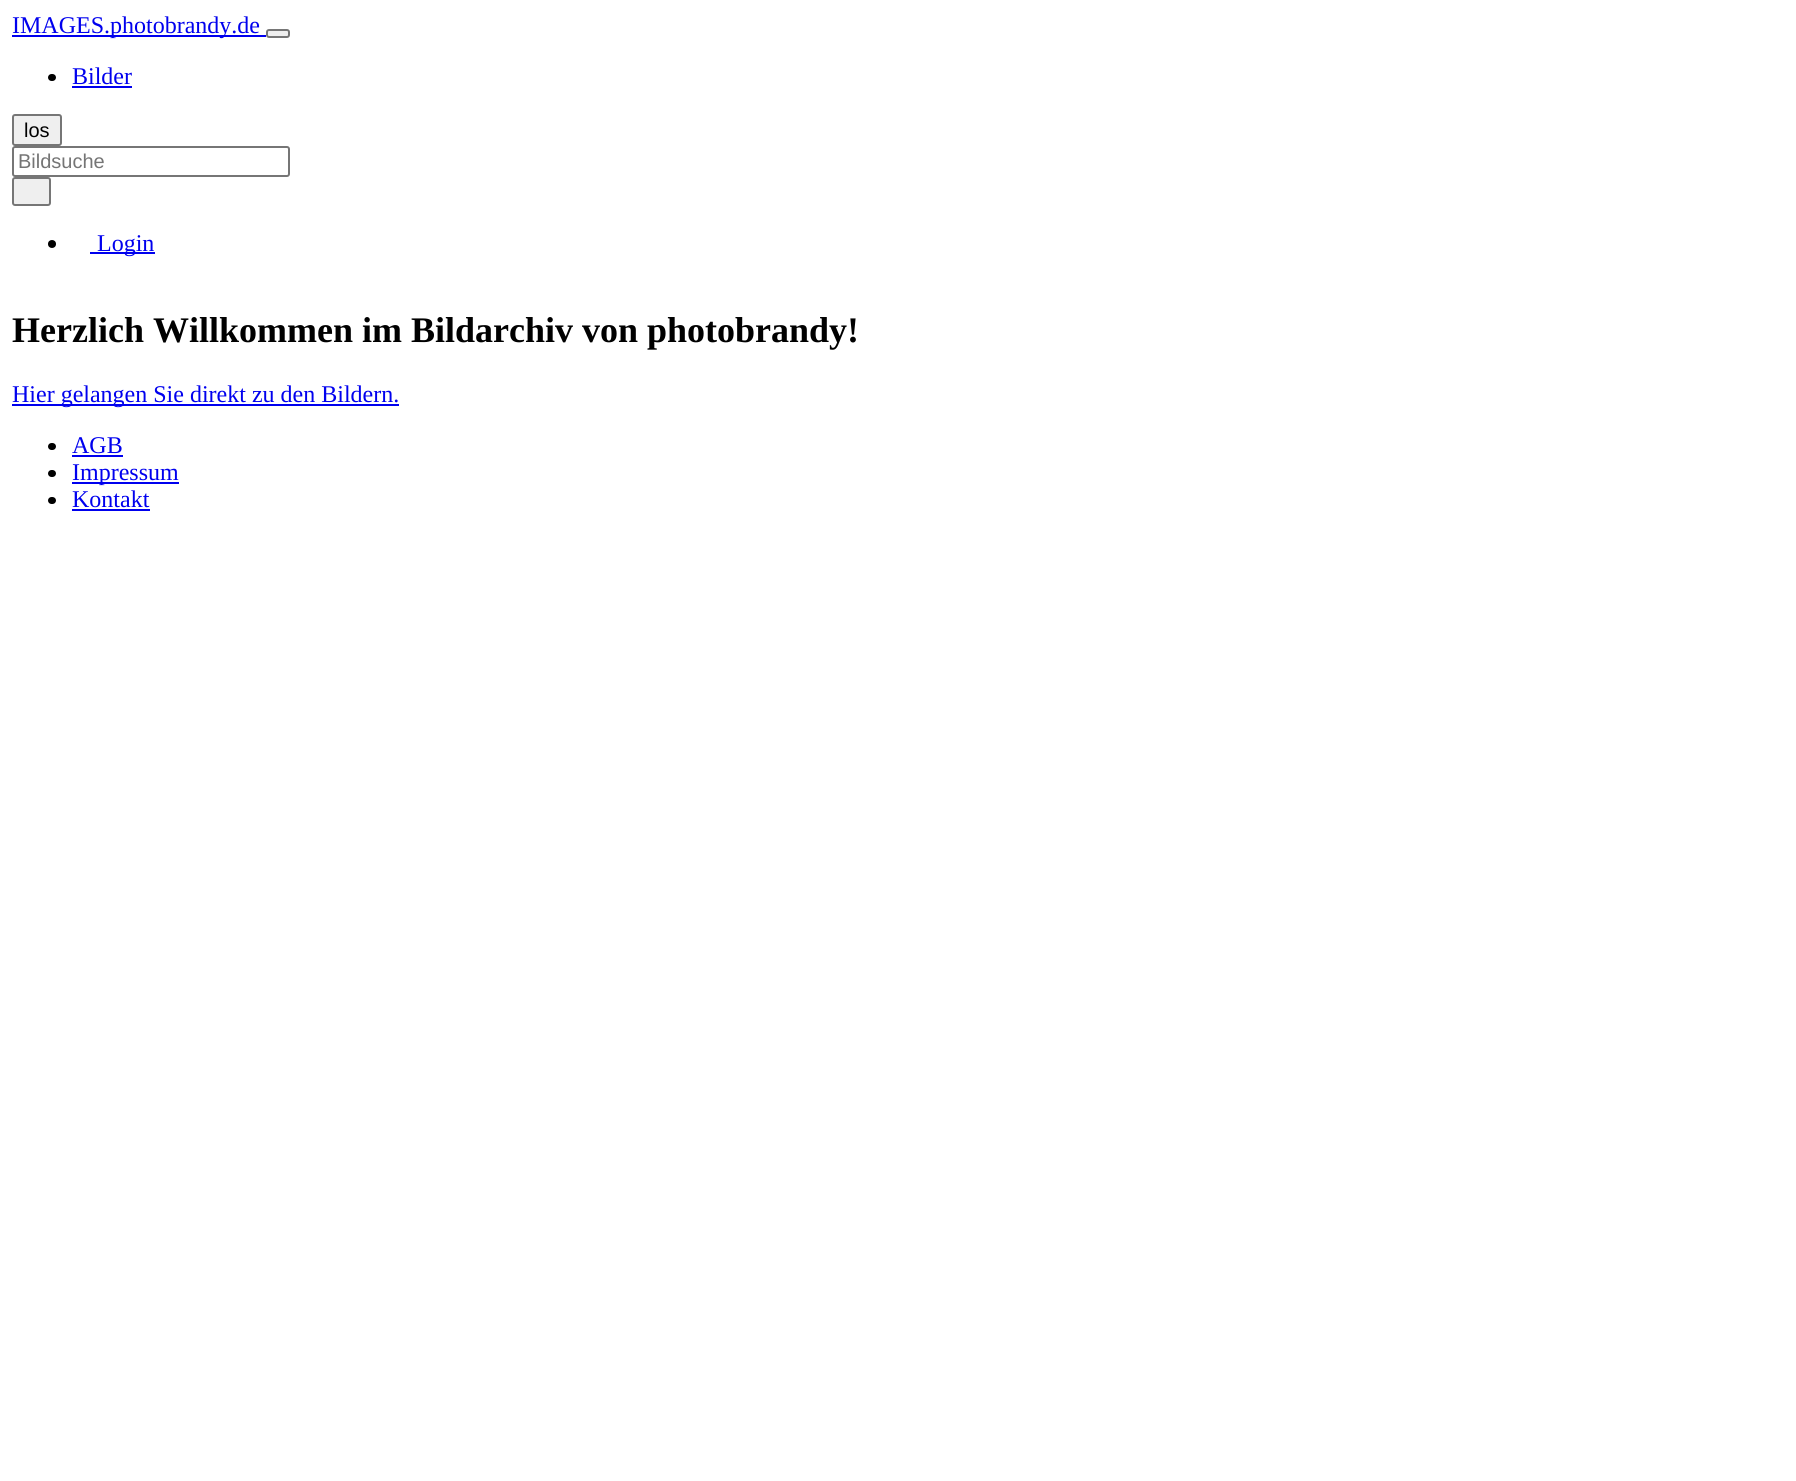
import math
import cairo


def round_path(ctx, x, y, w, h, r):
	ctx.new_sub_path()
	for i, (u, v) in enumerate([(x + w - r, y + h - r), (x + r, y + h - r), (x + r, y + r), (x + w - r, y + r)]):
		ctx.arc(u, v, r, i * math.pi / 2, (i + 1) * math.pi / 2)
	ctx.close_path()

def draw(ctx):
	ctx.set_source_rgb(1, 1, 1)
	ctx.paint()
	ctx.set_source_rgb(0, 0, 0.933)
	ctx.rectangle(12, 35, 254, 2)
	ctx.fill()
	ctx.select_font_face('Liberation Serif')
	ctx.set_font_size(24)
	ctx.move_to(12, 33)
	ctx.show_text('IMAGES.photobrandy.de')
	ctx.set_source_rgb(0.937, 0.937, 0.937)
	round_path(ctx, 267, 30, 22, 7, 2)
	ctx.fill_preserve()
	ctx.set_source_rgb(0.463, 0.463, 0.463)
	ctx.stroke()
	ctx.set_source_rgb(0, 0, 0)
	round_path(ctx, 48, 74, 8, 7, 3.5)
	ctx.fill()
	ctx.set_source_rgb(0, 0, 0.933)
	ctx.move_to(72, 84)
	ctx.show_text('Bilder')
	ctx.rectangle(72, 86, 60, 2)
	ctx.fill()
	ctx.set_source_rgb(0.937, 0.937, 0.937)
	round_path(ctx, 13, 115, 48, 30, 2)
	ctx.fill_preserve()
	ctx.set_source_rgb(0.463, 0.463, 0.463)
	ctx.stroke()
	ctx.select_font_face('Liberation Sans')
	ctx.set_font_size(20)
	ctx.set_source_rgb(0, 0, 0)
	ctx.move_to(24, 137)
	ctx.show_text('los')
	round_path(ctx, 13, 147, 276, 29, 2)
	ctx.set_source_rgb(0.463, 0.463, 0.463)
	ctx.stroke()
	ctx.set_source_rgb(0.459, 0.459, 0.459)
	ctx.move_to(18, 168)
	ctx.show_text('Bildsuche')
	ctx.set_source_rgb(0.937, 0.937, 0.937)
	round_path(ctx, 13, 178, 37, 27, 2)
	ctx.fill_preserve()
	ctx.set_source_rgb(0.463, 0.463, 0.463)
	ctx.stroke()
	ctx.set_source_rgb(0, 0, 0)
	ctx.arc(52, 244, 4, 0, 2 * math.pi)
	ctx.fill()
	ctx.set_source_rgb(0, 0, 0.933)
	ctx.rectangle(90, 252, 65, 2)
	ctx.fill()
	ctx.select_font_face('Liberation Serif')
	ctx.set_font_size(24)
	ctx.move_to(97, 251)
	ctx.show_text('Login')
	ctx.select_font_face('Liberation Serif', cairo.FONT_SLANT_NORMAL, cairo.FONT_WEIGHT_BOLD)
	ctx.set_font_size(36)
	ctx.set_source_rgb(0, 0, 0)
	ctx.move_to(12, 342)
	ctx.show_text('Herzlich Willkommen im Bildarchiv von photobrandy!')
	ctx.set_source_rgb(0, 0, 0.933)
	ctx.rectangle(12, 404, 387, 2)
	ctx.fill()
	ctx.select_font_face('Liberation Serif')
	ctx.set_font_size(24)
	ctx.move_to(12, 402)
	ctx.show_text('Hier gelangen Sie direkt zu den Bildern.')
	ctx.set_source_rgb(0, 0, 0)
	round_path(ctx, 48, 443, 8, 7, 3.5)
	ctx.fill()
	ctx.set_source_rgb(0, 0, 0.933)
	ctx.move_to(72, 453)
	ctx.show_text('AGB')
	ctx.rectangle(72, 455, 51, 2)
	ctx.fill()
	ctx.set_source_rgb(0, 0, 0)
	round_path(ctx, 48, 470, 8, 7, 3.5)
	ctx.fill()
	ctx.set_source_rgb(0, 0, 0.933)
	ctx.rectangle(72, 482, 107, 2)
	ctx.fill()
	ctx.move_to(72, 480)
	ctx.show_text('Impressum')
	ctx.set_source_rgb(0, 0, 0)
	round_path(ctx, 48, 497, 8, 7, 3.5)
	ctx.fill()
	ctx.set_source_rgb(0, 0, 0.933)
	ctx.move_to(72, 507)
	ctx.show_text('Kontakt')
	ctx.rectangle(72, 509, 78, 2)
	ctx.fill()


surface = cairo.ImageSurface(cairo.FORMAT_RGB24, 1796, 1481)
ctx = cairo.Context(surface)
options = cairo.FontOptions()
options.set_hint_metrics(cairo.HINT_METRICS_OFF)
options.set_hint_style(cairo.HINT_STYLE_NONE)
ctx.set_font_options(options)
ctx.set_miter_limit(4)
draw(ctx)
surface.write_to_png('image.png')
